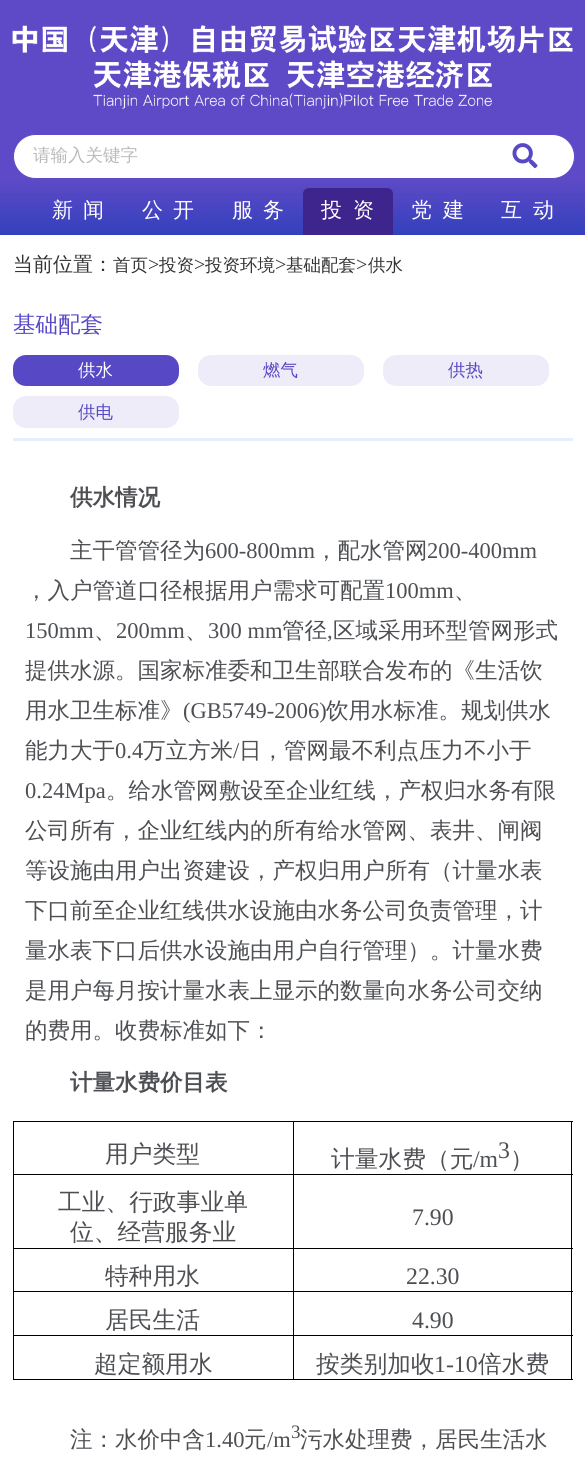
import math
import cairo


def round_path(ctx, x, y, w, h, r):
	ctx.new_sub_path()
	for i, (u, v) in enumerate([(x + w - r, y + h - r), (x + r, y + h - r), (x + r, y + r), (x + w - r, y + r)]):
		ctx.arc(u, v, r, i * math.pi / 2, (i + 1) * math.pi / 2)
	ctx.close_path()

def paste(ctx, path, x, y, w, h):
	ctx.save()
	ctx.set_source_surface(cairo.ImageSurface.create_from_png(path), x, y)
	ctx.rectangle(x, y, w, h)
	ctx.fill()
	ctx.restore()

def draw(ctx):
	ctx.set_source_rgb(1, 1, 1)
	ctx.paint()
	ctx.set_source_rgb(0.369, 0.29, 0.776)
	ctx.rectangle(0, 0, 585, 179)
	ctx.fill()
	paste(ctx, 'media/1.png', 12, 25, 561, 84)
	ctx.set_source_rgb(1, 1, 1)
	round_path(ctx, 13.5, 134.5, 561, 44, 22)
	ctx.fill_preserve()
	ctx.set_source_rgb(0.369, 0.29, 0.776)
	ctx.set_line_width(1)
	ctx.stroke()
	ctx.select_font_face('WenQuanYi Zen Hei Medium')
	ctx.set_font_size(17.5)
	ctx.set_source_rgb(0.729, 0.729, 0.729)
	ctx.move_to(33, 161)
	ctx.show_text('请输入关键字')
	paste(ctx, 'media/2.png', 512, 143, 26, 26)
	gradient = cairo.LinearGradient(293, 179, 293, 235)
	gradient.add_color_stop_rgba(0, 0.369, 0.29, 0.776, 1)
	gradient.add_color_stop_rgba(1, 0.2, 0.251, 0.741, 1)
	ctx.set_source(gradient)
	ctx.rectangle(0, 179, 585, 56)
	ctx.fill()
	ctx.set_font_size(21)
	ctx.set_source_rgb(1, 1, 1)
	for x, y, s in [
		(52, 217, '新'),
		(83, 217, '闻'),
		(142, 217, '公'),
		(173, 217, '开'),
		(232, 217, '服'),
		(263, 217, '务'),
	]:
		ctx.move_to(x, y)
		ctx.show_text(s)
	ctx.set_source_rgb(0.243, 0.145, 0.557)
	ctx.new_path()
	ctx.move_to(309, 188)
	ctx.line_to(387, 188)
	ctx.curve_to(390.5, 188, 393, 190.5, 393, 194)
	ctx.line_to(393, 235)
	ctx.line_to(303, 235)
	ctx.line_to(303, 194)
	ctx.curve_to(303, 190.5, 305.5, 188, 309, 188)
	ctx.close_path()
	ctx.fill()
	ctx.set_source_rgb(1, 1, 1)
	for x, y, s in [
		(321, 217, '投'),
		(353, 217, '资'),
		(411, 217, '党'),
		(443, 217, '建'),
		(501, 217, '互'),
		(533, 217, '动'),
	]:
		ctx.move_to(x, y)
		ctx.show_text(s)
	ctx.set_font_size(20)
	ctx.set_source_rgb(0.2, 0.2, 0.2)
	ctx.move_to(13, 271)
	ctx.show_text('当前位置：')
	ctx.set_font_size(17.5)
	ctx.move_to(113, 271)
	ctx.show_text('首页')
	ctx.select_font_face('Liberation Serif')
	ctx.set_font_size(20)
	ctx.move_to(148, 271)
	ctx.show_text('>')
	ctx.select_font_face('WenQuanYi Zen Hei Medium')
	ctx.set_font_size(17.5)
	ctx.move_to(159, 271)
	ctx.show_text('投资')
	ctx.select_font_face('Liberation Serif')
	ctx.set_font_size(20)
	ctx.move_to(194, 271)
	ctx.show_text('>')
	ctx.select_font_face('WenQuanYi Zen Hei Medium')
	ctx.set_font_size(17.5)
	ctx.move_to(205, 271)
	ctx.show_text('投资环境')
	ctx.select_font_face('Liberation Serif')
	ctx.set_font_size(20)
	ctx.move_to(275, 271)
	ctx.show_text('>')
	ctx.select_font_face('WenQuanYi Zen Hei Medium')
	ctx.set_font_size(17.5)
	ctx.move_to(286, 271)
	ctx.show_text('基础配套')
	ctx.select_font_face('Liberation Serif')
	ctx.set_font_size(20)
	ctx.move_to(356, 271)
	ctx.show_text('>')
	ctx.select_font_face('WenQuanYi Zen Hei Medium')
	ctx.set_font_size(17.5)
	ctx.move_to(368, 271)
	ctx.show_text('供水')
	ctx.set_source_rgb(0.894, 0.933, 1)
	ctx.rectangle(13, 438, 560, 3)
	ctx.fill()
	ctx.set_font_size(22.5)
	ctx.set_source_rgb(0.341, 0.282, 0.773)
	ctx.move_to(13, 332)
	ctx.show_text('基础配套')
	round_path(ctx, 13, 355, 166, 31, 13)
	ctx.fill()
	ctx.set_font_size(17.5)
	ctx.set_source_rgb(1, 1, 1)
	ctx.move_to(78, 376)
	ctx.show_text('供水')
	ctx.set_source_rgb(0.933, 0.925, 0.976)
	round_path(ctx, 198, 355, 166, 31, 13)
	ctx.fill()
	ctx.set_source_rgb(0.341, 0.282, 0.773)
	ctx.move_to(263, 376)
	ctx.show_text('燃气')
	ctx.set_source_rgb(0.933, 0.925, 0.976)
	round_path(ctx, 383, 355, 166, 31, 13)
	ctx.fill()
	ctx.set_source_rgb(0.341, 0.282, 0.773)
	ctx.move_to(448, 376)
	ctx.show_text('供热')
	ctx.set_source_rgb(0.933, 0.925, 0.976)
	round_path(ctx, 13, 396, 166, 32, 13)
	ctx.fill()
	ctx.set_source_rgb(0.341, 0.282, 0.773)
	ctx.move_to(78, 418)
	ctx.show_text('供电')
	ctx.select_font_face('WenQuanYi Zen Hei', cairo.FONT_SLANT_NORMAL, cairo.FONT_WEIGHT_BOLD)
	ctx.set_font_size(22.5)
	ctx.set_source_rgb(0.302, 0.31, 0.325)
	ctx.move_to(70, 505)
	ctx.show_text('供水情况')
	ctx.select_font_face('WenQuanYi Zen Hei Medium')
	ctx.move_to(70, 558)
	ctx.show_text('主干管管径为')
	ctx.select_font_face('Liberation Serif')
	ctx.move_to(205, 558)
	ctx.show_text('600-800mm')
	ctx.select_font_face('WenQuanYi Zen Hei Medium')
	ctx.move_to(315, 558)
	ctx.show_text('，配水管网')
	ctx.select_font_face('Liberation Serif')
	ctx.move_to(427, 558)
	ctx.show_text('200-400mm')
	ctx.select_font_face('WenQuanYi Zen Hei Medium')
	ctx.move_to(25, 598)
	ctx.show_text('，入户管道口径根据用户需求可配置')
	ctx.select_font_face('Liberation Serif')
	ctx.move_to(385, 598)
	ctx.show_text('100mm')
	ctx.select_font_face('WenQuanYi Zen Hei Medium')
	ctx.move_to(454, 598)
	ctx.show_text('、')
	ctx.select_font_face('Liberation Serif')
	ctx.move_to(25, 638)
	ctx.show_text('150mm')
	ctx.select_font_face('WenQuanYi Zen Hei Medium')
	ctx.move_to(94, 638)
	ctx.show_text('、')
	ctx.select_font_face('Liberation Serif')
	ctx.move_to(116, 638)
	ctx.show_text('200mm')
	ctx.select_font_face('WenQuanYi Zen Hei Medium')
	ctx.move_to(185, 638)
	ctx.show_text('、')
	ctx.select_font_face('Liberation Serif')
	ctx.move_to(208, 638)
	ctx.show_text('300 mm')
	ctx.select_font_face('WenQuanYi Zen Hei Medium')
	ctx.move_to(282, 638)
	ctx.show_text('管径')
	ctx.select_font_face('Liberation Serif')
	ctx.move_to(327, 638)
	ctx.show_text(',')
	ctx.select_font_face('WenQuanYi Zen Hei Medium')
	for x, y, s in [
		(333, 638, '区域采用环型管网形式'),
		(25, 678, '提供水源。国家标准委和卫生部联合发布的《生活饮'),
		(25, 718, '用水卫生标准》'),
	]:
		ctx.move_to(x, y)
		ctx.show_text(s)
	ctx.select_font_face('Liberation Serif')
	ctx.move_to(183, 718)
	ctx.show_text('(GB5749-2006)')
	ctx.select_font_face('WenQuanYi Zen Hei Medium')
	ctx.move_to(326, 718)
	ctx.show_text('饮用水标准。规划供水')
	ctx.move_to(25, 758)
	ctx.show_text('能力大于')
	ctx.select_font_face('Liberation Serif')
	ctx.move_to(115, 758)
	ctx.show_text('0.4')
	ctx.select_font_face('WenQuanYi Zen Hei Medium')
	ctx.move_to(143, 758)
	ctx.show_text('万立方米')
	ctx.select_font_face('Liberation Serif')
	ctx.move_to(233, 758)
	ctx.show_text('/')
	ctx.select_font_face('WenQuanYi Zen Hei Medium')
	ctx.move_to(239, 758)
	ctx.show_text('日，管网最不利点压力不小于')
	ctx.select_font_face('Liberation Serif')
	ctx.move_to(25, 798)
	ctx.show_text('0.24Mpa')
	ctx.select_font_face('WenQuanYi Zen Hei Medium')
	for x, y, s in [
		(106, 798, '。给水管网敷设至企业红线，产权归水务有限'),
		(25, 838, '公司所有，企业红线内的所有给水管网、表井、闸阀'),
		(25, 878, '等设施由用户出资建设，产权归用户所有（计量水表'),
		(25, 918, '下口前至企业红线供水设施由水务公司负责管理，计'),
		(25, 958, '量水表下口后供水设施由用户自行管理）。计量水费'),
		(25, 998, '是用户每月按计量水表上显示的数量向水务公司交纳'),
		(25, 1038, '的费用。收费标准如下：'),
	]:
		ctx.move_to(x, y)
		ctx.show_text(s)
	ctx.select_font_face('WenQuanYi Zen Hei', cairo.FONT_SLANT_NORMAL, cairo.FONT_WEIGHT_BOLD)
	ctx.move_to(70, 1090)
	ctx.show_text('计量水费价目表')
	ctx.set_source_rgb(0, 0, 0)
	ctx.rectangle(13, 1121, 560, 1)
	ctx.rectangle(571, 1174, 1, 206)
	ctx.rectangle(571, 1121, 1, 54)
	ctx.rectangle(293, 1379, 280, 1)
	ctx.rectangle(293, 1335, 1, 45)
	ctx.rectangle(293, 1335, 280, 1)
	ctx.rectangle(293, 1291, 1, 45)
	ctx.rectangle(293, 1291, 280, 1)
	ctx.rectangle(293, 1248, 1, 45)
	ctx.rectangle(293, 1248, 280, 1)
	ctx.rectangle(293, 1174, 1, 75)
	ctx.rectangle(293, 1174, 280, 1)
	ctx.rectangle(293, 1121, 1, 54)
	ctx.rectangle(13, 1379, 281, 1)
	ctx.rectangle(13, 1335, 1, 45)
	ctx.rectangle(13, 1335, 281, 1)
	ctx.rectangle(13, 1291, 1, 45)
	ctx.rectangle(13, 1291, 281, 1)
	ctx.rectangle(13, 1248, 1, 45)
	ctx.rectangle(13, 1248, 281, 1)
	ctx.rectangle(13, 1174, 1, 75)
	ctx.rectangle(13, 1174, 281, 1)
	ctx.rectangle(13, 1121, 1, 54)
	ctx.fill()
	ctx.select_font_face('WenQuanYi Zen Hei Medium')
	ctx.set_font_size(23.75)
	ctx.set_source_rgb(0.302, 0.31, 0.325)
	ctx.move_to(105, 1162)
	ctx.show_text('用户类型')
	ctx.move_to(331, 1167)
	ctx.show_text('计量水费（元')
	ctx.select_font_face('Liberation Serif')
	ctx.move_to(473, 1167)
	ctx.show_text('/m')
	ctx.move_to(498, 1158)
	ctx.show_text('3')
	ctx.select_font_face('WenQuanYi Zen Hei Medium')
	for x, y, s in [
		(510, 1167, '）'),
		(58, 1210, '工业、行政事业单'),
		(70, 1240, '位、经营服务业'),
	]:
		ctx.move_to(x, y)
		ctx.show_text(s)
	ctx.select_font_face('Liberation Serif')
	ctx.move_to(412, 1225)
	ctx.show_text('7.90')
	ctx.select_font_face('WenQuanYi Zen Hei Medium')
	ctx.move_to(105, 1284)
	ctx.show_text('特种用水')
	ctx.select_font_face('Liberation Serif')
	ctx.move_to(406, 1284)
	ctx.show_text('22.30')
	ctx.select_font_face('WenQuanYi Zen Hei Medium')
	ctx.move_to(105, 1328)
	ctx.show_text('居民生活')
	ctx.select_font_face('Liberation Serif')
	ctx.move_to(412, 1328)
	ctx.show_text('4.90')
	ctx.select_font_face('WenQuanYi Zen Hei Medium')
	ctx.move_to(94, 1372)
	ctx.show_text('超定额用水')
	ctx.move_to(316, 1372)
	ctx.show_text('按类别加收')
	ctx.select_font_face('Liberation Serif')
	ctx.move_to(434, 1372)
	ctx.show_text('1-10')
	ctx.select_font_face('WenQuanYi Zen Hei Medium')
	ctx.move_to(478, 1372)
	ctx.show_text('倍水费')
	ctx.set_font_size(22.5)
	ctx.move_to(70, 1447)
	ctx.show_text('注：水价中含')
	ctx.select_font_face('Liberation Serif')
	ctx.move_to(205, 1447)
	ctx.show_text('1.40')
	ctx.select_font_face('WenQuanYi Zen Hei Medium')
	ctx.move_to(244, 1447)
	ctx.show_text('元')
	ctx.select_font_face('Liberation Serif')
	ctx.move_to(267, 1447)
	ctx.show_text('/m')
	ctx.set_font_size(19)
	ctx.move_to(291, 1438)
	ctx.show_text('3')
	ctx.select_font_face('WenQuanYi Zen Hei Medium')
	ctx.set_font_size(22.5)
	ctx.move_to(300, 1447)
	ctx.show_text('污水处理费，居民生活水')


surface = cairo.ImageSurface(cairo.FORMAT_RGB24, 585, 1474)
ctx = cairo.Context(surface)
options = cairo.FontOptions()
options.set_hint_metrics(cairo.HINT_METRICS_OFF)
options.set_hint_style(cairo.HINT_STYLE_NONE)
ctx.set_font_options(options)
ctx.set_miter_limit(4)
draw(ctx)
surface.write_to_png('image.png')
